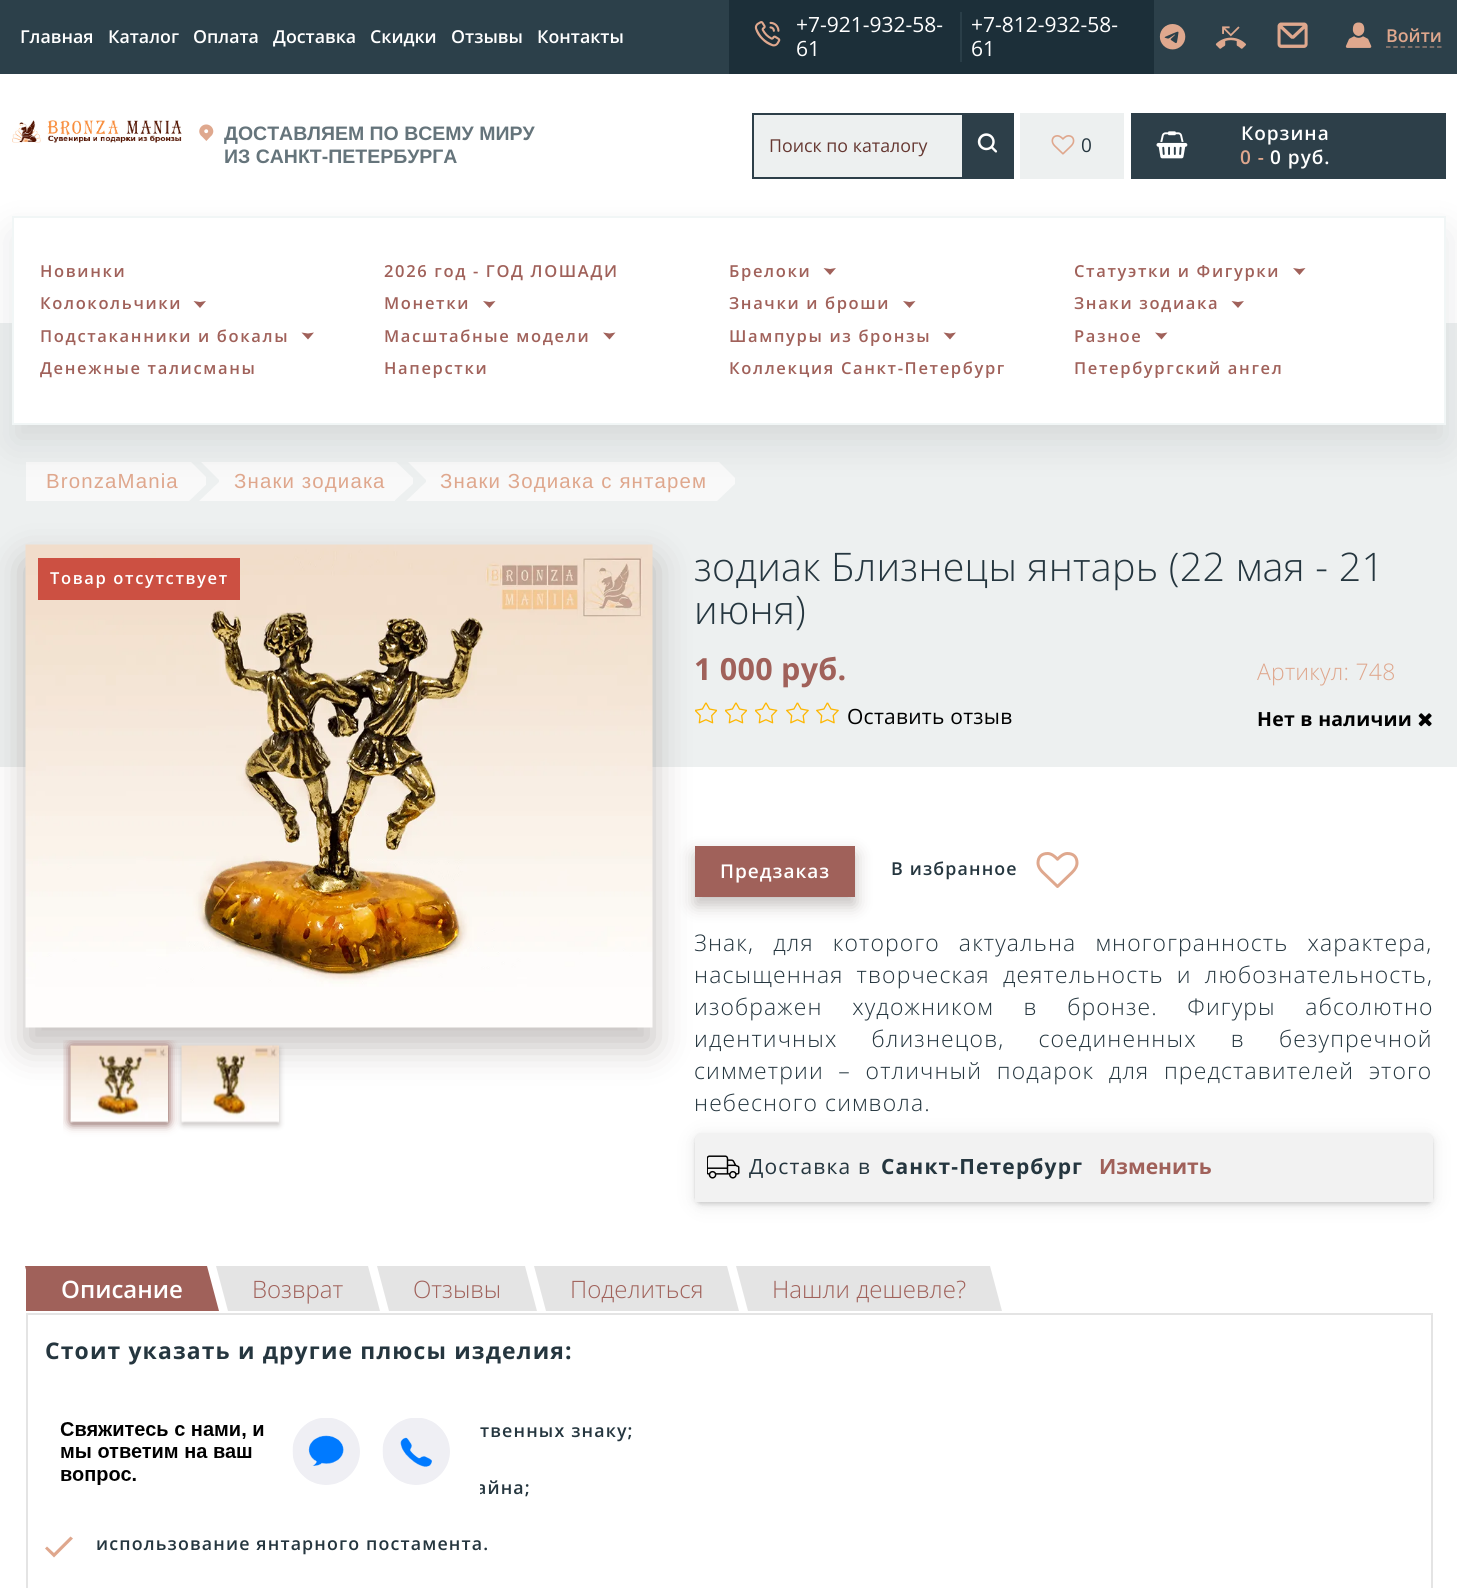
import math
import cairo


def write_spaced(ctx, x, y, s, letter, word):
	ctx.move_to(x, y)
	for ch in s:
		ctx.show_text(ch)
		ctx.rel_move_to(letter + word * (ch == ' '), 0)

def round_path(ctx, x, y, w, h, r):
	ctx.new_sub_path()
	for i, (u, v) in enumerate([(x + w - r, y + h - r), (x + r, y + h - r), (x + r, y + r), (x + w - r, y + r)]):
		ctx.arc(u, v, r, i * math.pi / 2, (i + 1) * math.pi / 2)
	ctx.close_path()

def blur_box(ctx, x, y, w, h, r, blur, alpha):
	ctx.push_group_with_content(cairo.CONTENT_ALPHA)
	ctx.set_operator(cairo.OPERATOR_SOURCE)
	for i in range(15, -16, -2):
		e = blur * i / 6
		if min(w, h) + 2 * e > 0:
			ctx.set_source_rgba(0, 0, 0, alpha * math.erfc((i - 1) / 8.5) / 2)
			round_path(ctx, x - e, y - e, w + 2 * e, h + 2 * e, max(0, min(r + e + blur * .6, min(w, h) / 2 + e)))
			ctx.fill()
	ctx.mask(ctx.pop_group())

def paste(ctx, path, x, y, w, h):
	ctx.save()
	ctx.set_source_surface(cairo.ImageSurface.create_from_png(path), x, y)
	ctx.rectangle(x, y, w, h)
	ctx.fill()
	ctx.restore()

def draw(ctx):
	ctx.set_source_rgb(1, 1, 1)
	ctx.paint()
	ctx.set_source_rgb(0.173, 0.251, 0.29)
	ctx.rectangle(0, 0, 1457, 74)
	ctx.fill()
	ctx.select_font_face('Open Sans SemiBold')
	ctx.set_font_size(17.8)
	ctx.set_source_rgb(1, 1, 1)
	for x, y, s in [
		(20, 43, 'Главная'),
		(108, 43, 'Каталог'),
		(193, 43, 'Оплата'),
		(273, 43, 'Доставка'),
		(370, 43, 'Скидки'),
		(451, 43, 'Отзывы'),
		(537, 43, 'Контакты'),
	]:
		ctx.move_to(x, y)
		ctx.show_text(s)
	ctx.set_source_rgb(0.11, 0.184, 0.224)
	ctx.rectangle(729, 0, 425, 74)
	ctx.fill()
	paste(ctx, 'media/1.png', 754, 21, 27, 26)
	ctx.set_source_rgb(0.165, 0.243, 0.282)
	ctx.rectangle(960, 12, 2, 50)
	ctx.fill()
	ctx.select_font_face('Open Sans')
	ctx.set_font_size(21)
	ctx.set_source_rgb(1, 1, 1)
	for x, y, s in [
		(796, 32, '+7-921-932-58-'),
		(796, 56, '61'),
		(971, 32, '+7-812-932-58-'),
		(971, 56, '61'),
	]:
		ctx.move_to(x, y)
		ctx.show_text(s)
	paste(ctx, 'media/2.png', 1159, 24, 27, 26)
	paste(ctx, 'media/3.png', 1215, 26, 31, 23)
	paste(ctx, 'media/4.png', 1277, 22, 31, 26)
	paste(ctx, 'media/5.png', 1345, 22, 27, 26)
	ctx.select_font_face('Open Sans SemiBold')
	ctx.set_font_size(17.8)
	ctx.set_source_rgb(0.875, 0.655, 0.553)
	ctx.move_to(1386, 42)
	ctx.show_text('Войти')
	ctx.new_path()
	ctx.move_to(1386, 47)
	ctx.line_to(1441.5, 47)
	ctx.set_source_rgb(0.592, 0.494, 0.451)
	ctx.set_line_width(1.5)
	ctx.set_dash([4.5, 2.79])
	ctx.stroke()
	paste(ctx, 'media/6.png', 12, 120, 170, 23)
	paste(ctx, 'media/7.png', 199, 124, 15, 17)
	ctx.select_font_face('Liberation Sans', cairo.FONT_SLANT_NORMAL, cairo.FONT_WEIGHT_BOLD)
	ctx.set_font_size(19.5)
	ctx.set_source_rgb(0.396, 0.455, 0.482)
	ctx.move_to(224, 140)
	ctx.show_text('ДОСТАВЛЯЕМ ПО ВСЕМУ МИРУ')
	ctx.move_to(224, 163)
	ctx.show_text('ИЗ САНКТ-ПЕТЕРБУРГА')
	ctx.set_source_rgb(0.929, 0.941, 0.941)
	ctx.rectangle(754, 115, 208, 62)
	ctx.fill()
	ctx.rectangle(753, 114, 260, 64)
	ctx.set_source_rgb(0.176, 0.247, 0.286)
	ctx.set_line_width(2)
	ctx.set_dash([])
	ctx.stroke()
	ctx.select_font_face('Open Sans')
	ctx.set_font_size(17.8)
	ctx.set_source_rgb(0.4, 0.22, 0.196)
	ctx.move_to(769, 152)
	ctx.show_text('Поиск по каталогу')
	ctx.set_source_rgb(0.176, 0.247, 0.286)
	ctx.rectangle(962, 115, 50, 62)
	ctx.fill()
	paste(ctx, 'media/8.png', 977, 133, 21, 20)
	ctx.set_source_rgb(0.929, 0.941, 0.941)
	ctx.rectangle(1020, 113, 104, 66)
	ctx.fill()
	paste(ctx, 'media/9.png', 1051, 135, 24, 20)
	ctx.set_font_size(19)
	ctx.set_source_rgb(0.145, 0.212, 0.247)
	write_spaced(ctx, 1081, 152, '0', 1.15, 0)
	ctx.set_source_rgb(0.176, 0.247, 0.286)
	ctx.rectangle(1131, 113, 315, 66)
	ctx.fill()
	paste(ctx, 'media/10.png', 1156, 131, 32, 28)
	ctx.select_font_face('Open Sans SemiBold')
	ctx.set_source_rgb(1, 1, 1)
	write_spaced(ctx, 1241, 140, 'Корзина', 1, 0)
	ctx.set_source_rgb(0.875, 0.655, 0.553)
	write_spaced(ctx, 1240, 164, '0 -', 1, 0)
	ctx.set_source_rgb(1, 1, 1)
	write_spaced(ctx, 1270, 164, '0 руб.', 1, 0)
	ctx.set_source_rgb(0.929, 0.941, 0.941)
	ctx.rectangle(0, 323, 1457, 444)
	ctx.fill()
	ctx.set_source_rgb(0.973, 0.976, 0.976)
	ctx.rectangle(26, 462, 162, 39)
	ctx.rectangle(199, 462, 196, 39)
	ctx.fill()
	ctx.save()
	ctx.rectangle(195, 461, 24, 40)
	ctx.clip()
	ctx.set_source_rgb(0.929, 0.941, 0.941)
	ctx.new_path()
	ctx.move_to(220, 481)
	ctx.line_to(198, 502)
	ctx.line_to(195, 502)
	ctx.line_to(195, 459)
	ctx.line_to(198, 459)
	ctx.close_path()
	ctx.fill()
	ctx.restore()
	ctx.save()
	ctx.rectangle(188, 462, 18, 39)
	ctx.clip()
	ctx.new_path()
	ctx.move_to(210, 481)
	ctx.line_to(188, 502)
	ctx.line_to(188, 459)
	ctx.close_path()
	ctx.fill()
	ctx.restore()
	ctx.rectangle(406, 462, 310, 39)
	ctx.fill()
	ctx.save()
	ctx.rectangle(402, 461, 24, 40)
	ctx.clip()
	ctx.set_source_rgb(0.929, 0.941, 0.941)
	ctx.new_path()
	ctx.move_to(427, 481)
	ctx.line_to(405, 502)
	ctx.line_to(402, 502)
	ctx.line_to(402, 459)
	ctx.line_to(405, 459)
	ctx.close_path()
	ctx.fill()
	ctx.restore()
	ctx.save()
	ctx.rectangle(393, 462, 20, 39)
	ctx.clip()
	ctx.new_path()
	ctx.move_to(416, 481)
	ctx.line_to(393, 502)
	ctx.line_to(393, 459)
	ctx.close_path()
	ctx.fill()
	ctx.restore()
	ctx.save()
	ctx.rectangle(716, 462, 19, 39)
	ctx.clip()
	ctx.new_path()
	ctx.move_to(738, 481)
	ctx.line_to(716, 502)
	ctx.line_to(716, 459)
	ctx.close_path()
	ctx.fill()
	ctx.restore()
	ctx.set_source_rgb(0.039, 0.051, 0.059)
	blur_box(ctx, 12, 234, 1434, 209, 0, 18.5, 0.1)
	ctx.set_source_rgb(1, 1, 1)
	ctx.rectangle(13, 217, 1432, 207)
	ctx.fill_preserve()
	ctx.set_source_rgb(0.945, 0.961, 0.961)
	ctx.stroke()
	ctx.set_font_size(16.5)
	ctx.set_source_rgb(0.627, 0.38, 0.353)
	for x, y, s in [
		(40, 277, 'Новинки'),
		(384, 277, '2026 год - ГОД ЛОШАДИ'),
		(729, 277, 'Брелоки'),
	]:
		write_spaced(ctx, x, y, s, 1.65, 0)
	ctx.new_path()
	ctx.move_to(823.5, 268)
	ctx.line_to(830, 269)
	ctx.line_to(836, 268)
	ctx.line_to(830, 275)
	ctx.close_path()
	ctx.fill()
	write_spaced(ctx, 1074, 277, 'Статуэтки и Фигурки', 1.65, 0)
	ctx.new_path()
	ctx.move_to(1293, 268)
	ctx.line_to(1299.5, 269)
	ctx.line_to(1305.5, 268)
	ctx.line_to(1299.5, 275)
	ctx.close_path()
	ctx.fill()
	write_spaced(ctx, 40, 309, 'Колокольчики', 1.65, 0)
	ctx.new_path()
	ctx.move_to(193.5, 301)
	ctx.line_to(200, 302)
	ctx.line_to(206, 301)
	ctx.line_to(200, 308)
	ctx.close_path()
	ctx.fill()
	write_spaced(ctx, 384, 309, 'Монетки', 1.65, 0)
	ctx.new_path()
	ctx.move_to(483, 301)
	ctx.line_to(489.5, 302)
	ctx.line_to(495.5, 301)
	ctx.line_to(489.5, 308)
	ctx.close_path()
	ctx.fill()
	write_spaced(ctx, 729, 309, 'Значки и броши', 1.65, 0)
	ctx.new_path()
	ctx.move_to(903, 301)
	ctx.line_to(909.5, 302)
	ctx.line_to(915.5, 301)
	ctx.line_to(909.5, 308)
	ctx.close_path()
	ctx.fill()
	write_spaced(ctx, 1074, 309, 'Знаки зодиака', 1.65, 0)
	ctx.new_path()
	ctx.move_to(1231.5, 301)
	ctx.line_to(1238, 302)
	ctx.line_to(1244, 301)
	ctx.line_to(1238, 308)
	ctx.close_path()
	ctx.fill()
	write_spaced(ctx, 40, 342, 'Подстаканники и бокалы', 1.65, 0)
	ctx.new_path()
	ctx.move_to(301.5, 332.5)
	ctx.line_to(308, 333.5)
	ctx.line_to(314, 332.5)
	ctx.line_to(308, 339.5)
	ctx.close_path()
	ctx.fill()
	write_spaced(ctx, 384, 342, 'Масштабные модели', 1.65, 0)
	ctx.new_path()
	ctx.move_to(603, 332.5)
	ctx.line_to(609.5, 333.5)
	ctx.line_to(615.5, 332.5)
	ctx.line_to(609.5, 339.5)
	ctx.close_path()
	ctx.fill()
	write_spaced(ctx, 729, 342, 'Шампуры из бронзы', 1.65, 0)
	ctx.new_path()
	ctx.move_to(943.5, 332.5)
	ctx.line_to(950, 333.5)
	ctx.line_to(956, 332.5)
	ctx.line_to(950, 339.5)
	ctx.close_path()
	ctx.fill()
	write_spaced(ctx, 1074, 342, 'Разное', 1.65, 0)
	ctx.new_path()
	ctx.move_to(1155, 332.5)
	ctx.line_to(1161.5, 333.5)
	ctx.line_to(1167.5, 332.5)
	ctx.line_to(1161.5, 339.5)
	ctx.close_path()
	ctx.fill()
	for x, y, s in [
		(40, 374, 'Денежные талисманы'),
		(384, 374, 'Наперстки'),
		(729, 374, 'Коллекция Санкт-Петербург'),
		(1074, 374, 'Петербургский ангел'),
	]:
		write_spaced(ctx, x, y, s, 1.65, 0)
	ctx.select_font_face('Liberation Sans')
	ctx.set_font_size(20.4)
	ctx.set_source_rgb(0.875, 0.655, 0.553)
	for x, y, s in [
		(46, 488, 'BronzaMania'),
		(234, 488, 'Знаки зодиака'),
		(440, 488, 'Знаки Зодиака с янтарем'),
	]:
		write_spaced(ctx, x, y, s, 1.15, 0)
	ctx.select_font_face('Open Sans Light')
	ctx.set_font_size(39.4)
	ctx.set_source_rgb(0.145, 0.212, 0.247)
	write_spaced(ctx, 694, 581, 'зодиак Близнецы янтарь (22 мая - 21', 0.25, 0)
	write_spaced(ctx, 694, 624, 'июня)', 0.25, 0)
	ctx.select_font_face('Open Sans', cairo.FONT_SLANT_NORMAL, cairo.FONT_WEIGHT_BOLD)
	ctx.set_font_size(30.5)
	ctx.set_source_rgb(0.627, 0.38, 0.353)
	write_spaced(ctx, 694, 680, '1 000 руб.', 0.25, 0)
	paste(ctx, 'media/11.png', 695, 702, 22, 22)
	paste(ctx, 'media/11.png', 725, 702, 22, 22)
	paste(ctx, 'media/12.png', 755, 702, 23, 22)
	paste(ctx, 'media/13.png', 786, 702, 23, 22)
	paste(ctx, 'media/13.png', 816, 702, 23, 22)
	ctx.select_font_face('Open Sans')
	ctx.set_font_size(21)
	ctx.set_source_rgb(0, 0, 0)
	write_spaced(ctx, 847, 724, 'Оставить отзыв', 0.25, 0)
	ctx.select_font_face('Open Sans Light')
	ctx.set_font_size(22.9)
	ctx.set_source_rgb(0.875, 0.655, 0.553)
	write_spaced(ctx, 1257, 680, 'Артикул: 748', 0.25, 0)
	ctx.select_font_face('Open Sans', cairo.FONT_SLANT_NORMAL, cairo.FONT_WEIGHT_BOLD)
	ctx.set_font_size(19.5)
	ctx.set_source_rgb(0, 0, 0)
	write_spaced(ctx, 1257, 726, 'Нет в наличии', 0.25, 0)
	paste(ctx, 'media/14.png', 1418, 713, 14, 14)
	ctx.set_source_rgb(0.106, 0.039, 0.012)
	blur_box(ctx, 26, 563, 627, 483, 0, 18.5, 0.26)
	paste(ctx, 'media/15.png', 25, 544, 628, 484)
	ctx.set_source_rgb(0.8, 0.314, 0.259)
	ctx.rectangle(38, 558, 202, 42)
	ctx.fill()
	ctx.select_font_face('Open Sans SemiBold')
	ctx.set_font_size(16.5)
	ctx.set_source_rgb(1, 1, 1)
	write_spaced(ctx, 50, 584, 'Товар отсутствует', 1.65, 0)
	ctx.save()
	ctx.rectangle(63, 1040, 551, 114)
	ctx.clip()
	ctx.set_source_rgb(0.627, 0.38, 0.353)
	blur_box(ctx, 71, 1046, 97, 76, 0, 6, 1)
	ctx.restore()
	ctx.set_source_rgb(0.106, 0.039, 0.012)
	blur_box(ctx, 71, 1049, 97, 76, 0, 3, 0.26)
	paste(ctx, 'media/16.png', 70, 1045, 98, 78)
	blur_box(ctx, 182, 1049, 97, 76, 0, 3, 0.26)
	paste(ctx, 'media/17.png', 181, 1045, 98, 78)
	blur_box(ctx, 695, 854, 160, 51, 0, 8.5, 0.26)
	ctx.set_source_rgb(0.627, 0.38, 0.353)
	ctx.rectangle(695, 846, 160, 51)
	ctx.fill()
	ctx.set_font_size(19)
	ctx.set_source_rgb(1, 1, 1)
	write_spaced(ctx, 720, 878, 'Предзаказ', 1, 0)
	ctx.set_font_size(17.8)
	ctx.set_source_rgb(0.145, 0.212, 0.247)
	write_spaced(ctx, 891, 875, 'В избранное', 1.15, 0)
	paste(ctx, 'media/18.png', 1036, 852, 43, 36)
	ctx.select_font_face('Open Sans Light')
	ctx.set_font_size(22.9)
	write_spaced(ctx, 694, 951, 'Знак, для которого актуальна многогранность характера,', 1.15, 12)
	write_spaced(ctx, 694, 983, 'насыщенная творческая деятельность и любознательность,', 1.15, 6)
	write_spaced(ctx, 694, 1015, 'изображен художником в бронзе. Фигуры абсолютно', 1.15, 22.5)
	write_spaced(ctx, 694, 1047, 'идентичных близнецов, соединенных в безупречной', 1.15, 27)
	write_spaced(ctx, 694, 1079, 'симметрии – отличный подарок для представителей этого', 1.15, 7.5)
	write_spaced(ctx, 694, 1111, 'небесного символа.', 1.15, 0)
	ctx.set_source_rgb(0, 0, 0)
	blur_box(ctx, 695, 1136, 738, 69, 6, 12, 0.05)
	blur_box(ctx, 695, 1136, 738, 69, 6, 6, 0.05)
	blur_box(ctx, 695, 1136, 738, 69, 6, 3, 0.05)
	blur_box(ctx, 695, 1136, 738, 69, 6, 1.5, 0.05)
	blur_box(ctx, 695, 1134, 738, 69, 6, 1, 0.05)
	ctx.set_source_rgb(0.949, 0.949, 0.949)
	ctx.new_path()
	ctx.move_to(701, 1133)
	ctx.line_to(1427, 1133)
	ctx.curve_to(1430.5, 1133, 1433, 1135.5, 1433, 1139)
	ctx.line_to(1433, 1202)
	ctx.line_to(695, 1202)
	ctx.line_to(695, 1139)
	ctx.curve_to(695, 1135.5, 697.5, 1133, 701, 1133)
	ctx.close_path()
	ctx.fill()
	paste(ctx, 'media/19.png', 707, 1155, 33, 24)
	ctx.select_font_face('Open Sans')
	ctx.set_font_size(21)
	ctx.set_source_rgb(0.145, 0.212, 0.247)
	write_spaced(ctx, 749, 1174, 'Доставка в', 1.15, 0)
	ctx.select_font_face('Open Sans', cairo.FONT_SLANT_NORMAL, cairo.FONT_WEIGHT_BOLD)
	write_spaced(ctx, 881, 1174, 'Санкт-Петербург', 1.15, 0)
	ctx.set_source_rgb(0.627, 0.38, 0.353)
	ctx.move_to(1099, 1174)
	ctx.show_text('Изменить')
	ctx.new_path()
	ctx.move_to(25, 1266)
	ctx.line_to(207, 1266)
	ctx.line_to(219, 1311)
	ctx.line_to(37, 1311)
	ctx.close_path()
	ctx.fill()
	ctx.rectangle(26, 1270, 11, 41)
	ctx.fill()
	ctx.select_font_face('Open Sans SemiBold')
	ctx.set_font_size(24)
	ctx.set_source_rgb(1, 1, 1)
	ctx.move_to(61, 1298)
	ctx.show_text('Описание')
	ctx.set_source_rgb(0.894, 0.894, 0.894)
	ctx.new_path()
	ctx.move_to(216, 1266)
	ctx.line_to(368, 1266)
	ctx.line_to(380, 1311)
	ctx.line_to(228, 1311)
	ctx.close_path()
	ctx.fill()
	ctx.select_font_face('Open Sans Light')
	ctx.set_source_rgb(0.627, 0.38, 0.353)
	ctx.move_to(252, 1298)
	ctx.show_text('Возврат')
	ctx.set_source_rgb(0.894, 0.894, 0.894)
	ctx.new_path()
	ctx.move_to(377, 1266)
	ctx.line_to(525, 1266)
	ctx.line_to(537, 1311)
	ctx.line_to(389, 1311)
	ctx.close_path()
	ctx.fill()
	ctx.set_source_rgb(0.627, 0.38, 0.353)
	ctx.move_to(413, 1298)
	ctx.show_text('Отзывы')
	ctx.set_source_rgb(0.894, 0.894, 0.894)
	ctx.new_path()
	ctx.move_to(534, 1266)
	ctx.line_to(727, 1266)
	ctx.line_to(739, 1311)
	ctx.line_to(546, 1311)
	ctx.close_path()
	ctx.fill()
	ctx.set_source_rgb(0.627, 0.38, 0.353)
	ctx.move_to(570, 1298)
	ctx.show_text('Поделиться')
	ctx.set_source_rgb(0.894, 0.894, 0.894)
	ctx.new_path()
	ctx.move_to(736, 1266)
	ctx.line_to(990, 1266)
	ctx.line_to(1002, 1311)
	ctx.line_to(748, 1311)
	ctx.close_path()
	ctx.fill()
	ctx.set_source_rgb(0.627, 0.38, 0.353)
	ctx.move_to(772, 1298)
	ctx.show_text('Нашли дешевле?')
	ctx.rectangle(27, 1314, 1405, 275)
	ctx.set_source_rgb(0.894, 0.894, 0.894)
	ctx.stroke()
	ctx.select_font_face('Open Sans', cairo.FONT_SLANT_NORMAL, cairo.FONT_WEIGHT_BOLD)
	ctx.set_font_size(22.9)
	ctx.set_source_rgb(0.145, 0.212, 0.247)
	write_spaced(ctx, 45, 1359, 'Стоит указать и другие плюсы изделия:', 1.15, 0)
	ctx.select_font_face('Open Sans SemiBold')
	ctx.set_font_size(17.8)
	write_spaced(ctx, 480, 1437, 'твенных знаку;', 1.15, 0)
	write_spaced(ctx, 476, 1494, 'айна;', 1.15, 0)
	ctx.set_source_rgb(0.875, 0.655, 0.553)
	ctx.new_path()
	ctx.move_to(54, 1553)
	ctx.line_to(47, 1546.5)
	ctx.line_to(45, 1548.5)
	ctx.line_to(54, 1557.5)
	ctx.line_to(73, 1538.5)
	ctx.line_to(70.5, 1536.5)
	ctx.close_path()
	ctx.fill()
	ctx.set_source_rgb(0.145, 0.212, 0.247)
	write_spaced(ctx, 96, 1550, 'использование янтарного постамента.', 1.15, 0)
	paste(ctx, 'media/20.png', 45, 1418, 435, 84)


surface = cairo.ImageSurface(cairo.FORMAT_RGB24, 1457, 1588)
ctx = cairo.Context(surface)
options = cairo.FontOptions()
options.set_hint_metrics(cairo.HINT_METRICS_OFF)
options.set_hint_style(cairo.HINT_STYLE_NONE)
ctx.set_font_options(options)
ctx.set_miter_limit(4)
draw(ctx)
surface.write_to_png('image.png')
